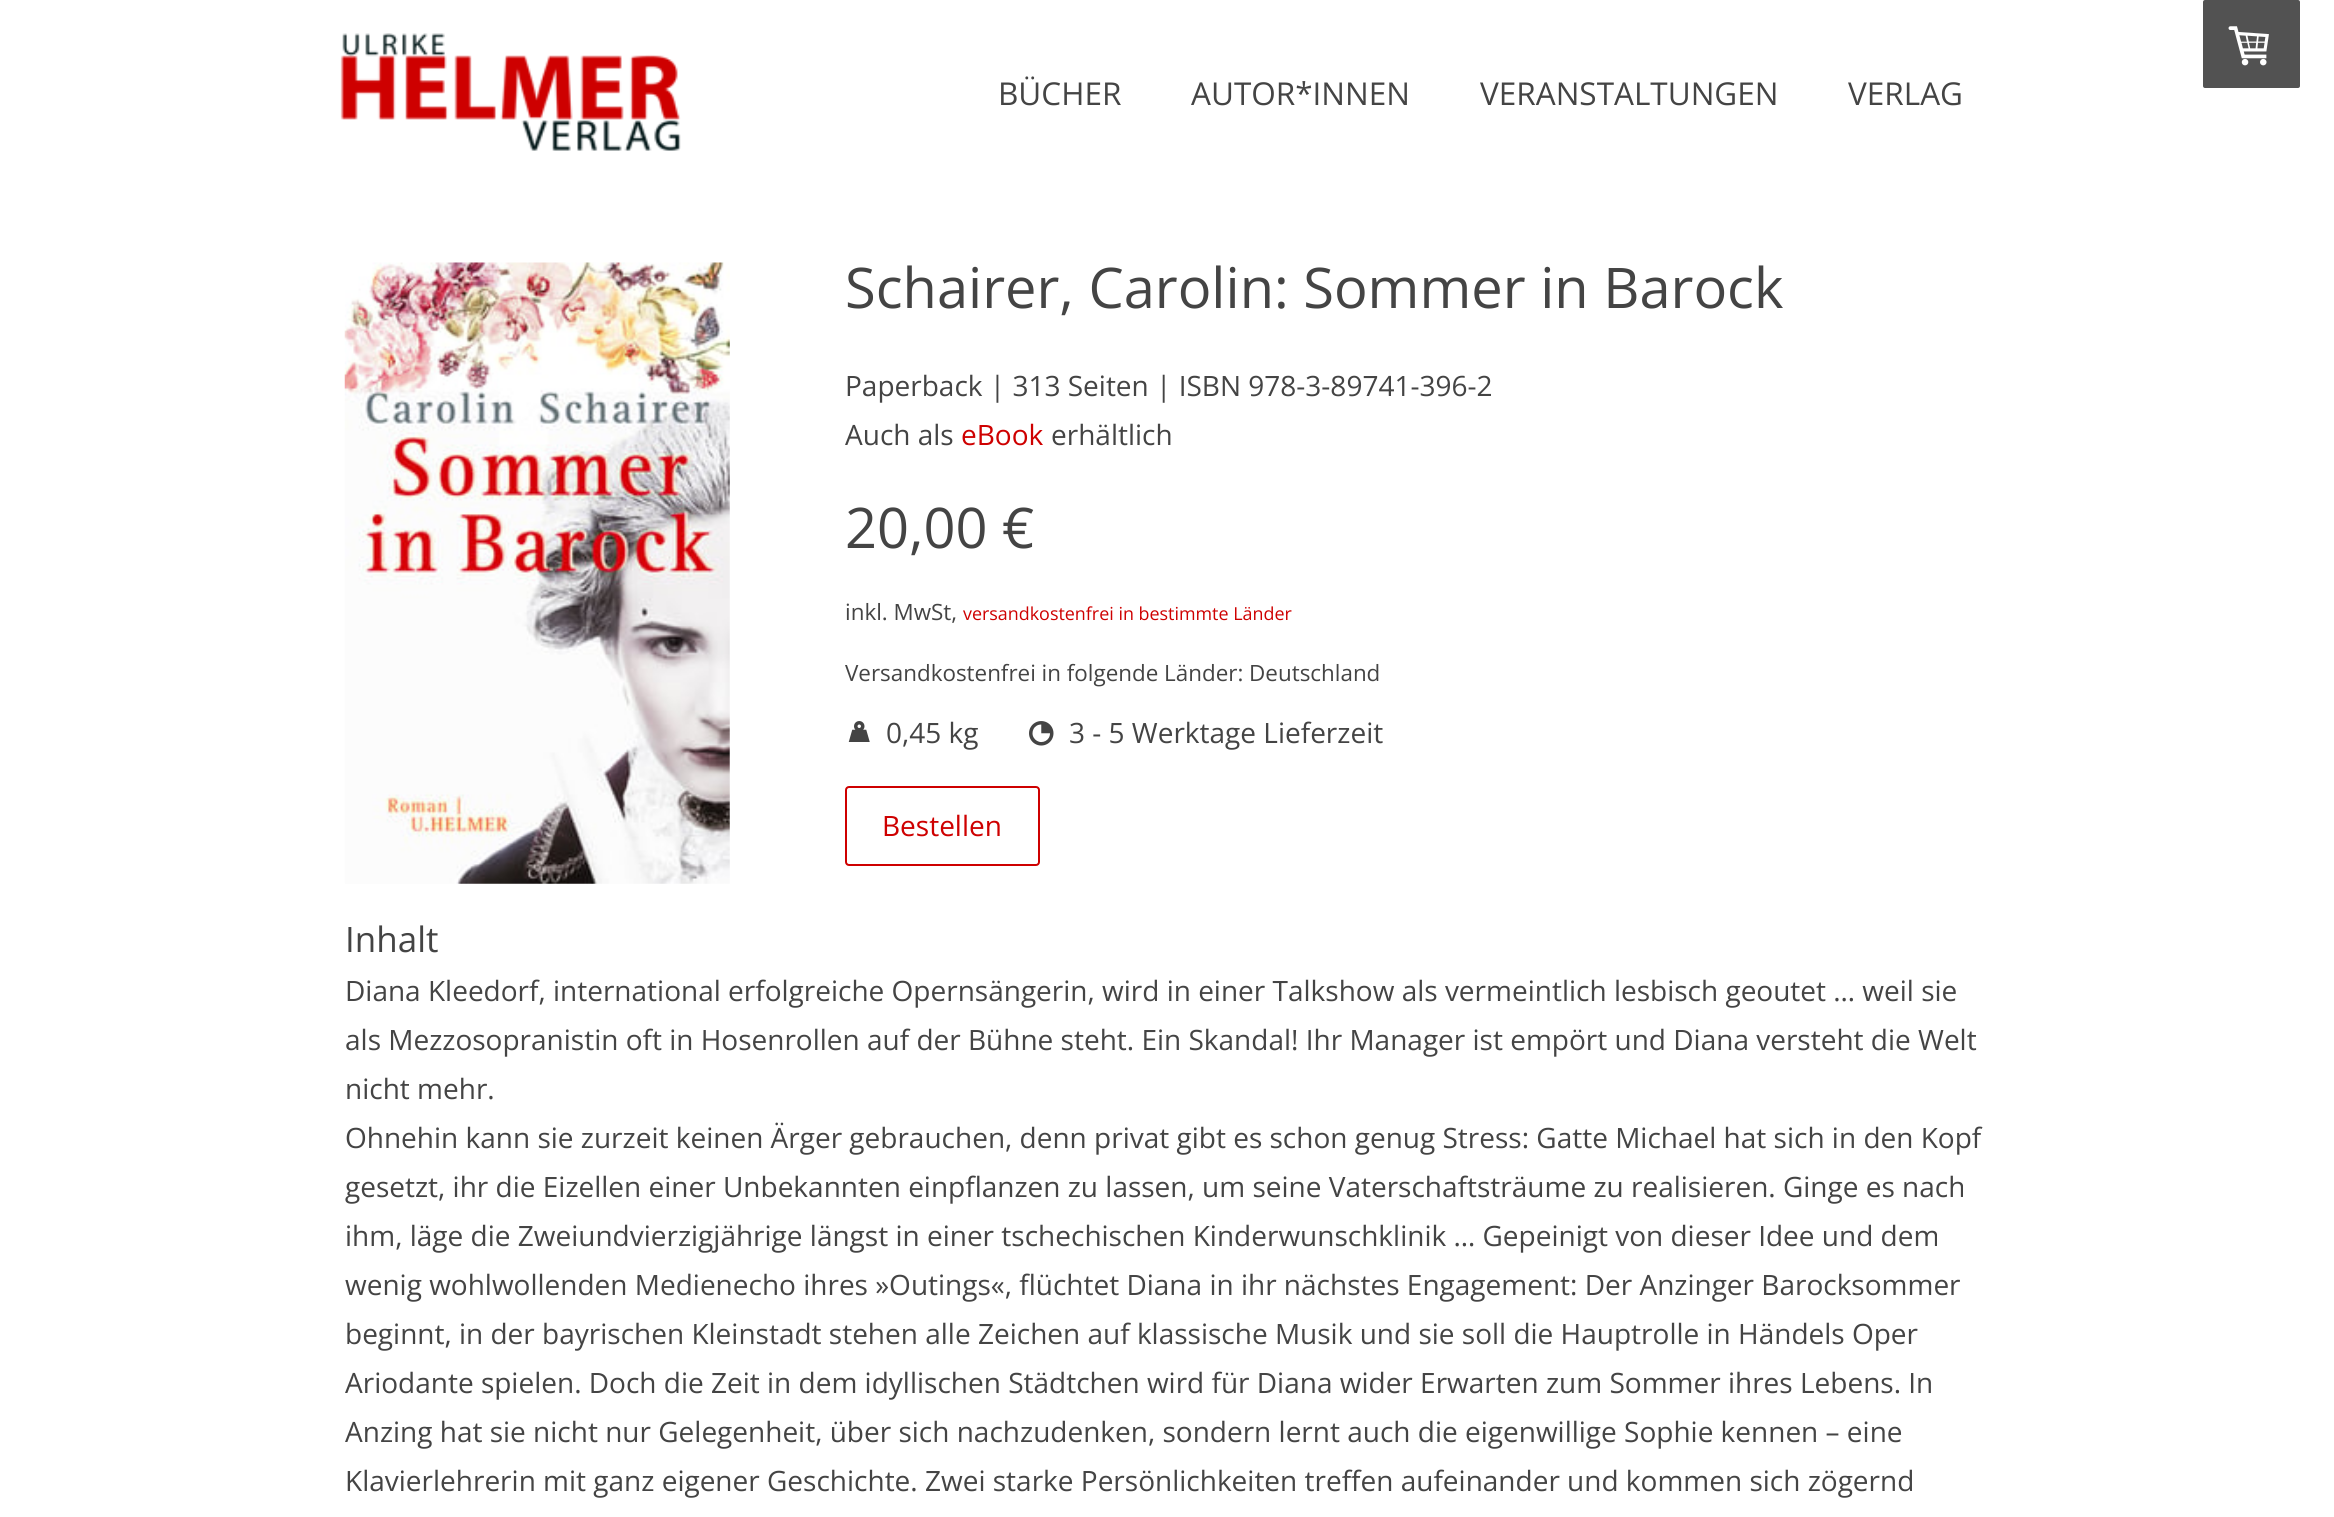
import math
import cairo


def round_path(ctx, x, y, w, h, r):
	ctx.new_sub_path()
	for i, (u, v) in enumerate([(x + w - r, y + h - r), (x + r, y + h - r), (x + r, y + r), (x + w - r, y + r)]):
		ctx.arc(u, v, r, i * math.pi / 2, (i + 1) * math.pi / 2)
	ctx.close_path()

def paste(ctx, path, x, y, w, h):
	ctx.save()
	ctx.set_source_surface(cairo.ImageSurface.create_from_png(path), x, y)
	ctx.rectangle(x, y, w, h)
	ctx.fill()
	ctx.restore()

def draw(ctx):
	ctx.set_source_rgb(1, 1, 1)
	ctx.paint()
	ctx.set_source_rgb(0.322, 0.322, 0.322)
	round_path(ctx, 2203, 0, 97, 88, 2)
	ctx.fill()
	paste(ctx, 'media/1.png', 2228, 26, 41, 40)
	paste(ctx, 'media/2.png', 340, 33, 341, 118)
	ctx.select_font_face('Open Sans')
	ctx.set_font_size(31.5)
	ctx.set_source_rgb(0.267, 0.267, 0.267)
	for x, y, s in [
		(998, 105, 'BÜCHER'),
		(1191, 105, 'AUTOR*INNEN'),
		(1480, 105, 'VERANSTALTUNGEN'),
		(1848, 105, 'VERLAG'),
	]:
		ctx.move_to(x, y)
		ctx.show_text(s)
	paste(ctx, 'media/3.png', 344, 262, 386, 622)
	ctx.set_font_size(56)
	ctx.move_to(845, 308)
	ctx.show_text('Schairer, Carolin: Sommer in Barock')
	ctx.set_font_size(28)
	ctx.move_to(845, 396)
	ctx.show_text('Paperback | 313 Seiten | ISBN 978-3-89741-396-2')
	ctx.move_to(845, 445)
	ctx.show_text('Auch als')
	ctx.set_source_rgb(0.808, 0, 0)
	ctx.move_to(961, 445)
	ctx.show_text('eBook')
	ctx.set_source_rgb(0.267, 0.267, 0.267)
	ctx.move_to(1051, 445)
	ctx.show_text('erhältlich')
	ctx.set_font_size(56)
	ctx.move_to(845, 548)
	ctx.show_text('20,00 €')
	ctx.set_font_size(22.4)
	ctx.move_to(845, 620)
	ctx.show_text('inkl. MwSt,')
	ctx.set_font_size(17.9)
	ctx.set_source_rgb(0.808, 0, 0)
	ctx.move_to(963, 620)
	ctx.show_text('versandkostenfrei in bestimmte Länder')
	ctx.set_font_size(22.4)
	ctx.set_source_rgb(0.267, 0.267, 0.267)
	ctx.move_to(845, 681)
	ctx.show_text('Versandkostenfrei in folgende Länder: Deutschland')
	paste(ctx, 'media/4.png', 848, 721, 22, 21)
	ctx.set_font_size(28)
	ctx.move_to(886, 743)
	ctx.show_text('0,45 kg')
	paste(ctx, 'media/5.png', 1029, 721, 25, 25)
	ctx.move_to(1069, 743)
	ctx.show_text('3 - 5 Werktage Lieferzeit')
	round_path(ctx, 846, 787, 193, 78, 3)
	ctx.set_source_rgb(0.808, 0, 0)
	ctx.stroke()
	ctx.move_to(882, 836)
	ctx.show_text('Bestellen')
	ctx.set_font_size(35)
	ctx.set_source_rgb(0.267, 0.267, 0.267)
	ctx.move_to(345, 952)
	ctx.show_text('Inhalt')
	ctx.set_font_size(28)
	for x, y, s in [
		(345, 1001, 'Diana Kleedorf, international erfolgreiche Opernsängerin, wird in einer Talkshow als vermeintlich lesbisch geoutet … weil sie'),
		(345, 1050, 'als Mezzosopranistin oft in Hosenrollen auf der Bühne steht. Ein Skandal! Ihr Manager ist empört und Diana versteht die Welt'),
		(345, 1099, 'nicht mehr.'),
		(345, 1148, 'Ohnehin kann sie zurzeit keinen Ärger gebrauchen, denn privat gibt es schon genug Stress: Gatte Michael hat sich in den Kopf'),
		(345, 1197, 'gesetzt, ihr die Eizellen einer Unbekannten einpflanzen zu lassen, um seine Vaterschaftsträume zu realisieren. Ginge es nach'),
		(345, 1246, 'ihm, läge die Zweiundvierzigjährige längst in einer tschechischen Kinderwunschklinik … Gepeinigt von dieser Idee und dem'),
		(345, 1295, 'wenig wohlwollenden Medienecho ihres »Outings«, flüchtet Diana in ihr nächstes Engagement: Der Anzinger Barocksommer'),
		(345, 1344, 'beginnt, in der bayrischen Kleinstadt stehen alle Zeichen auf klassische Musik und sie soll die Hauptrolle in Händels Oper'),
		(345, 1393, 'Ariodante spielen. Doch die Zeit in dem idyllischen Städtchen wird für Diana wider Erwarten zum Sommer ihres Lebens. In'),
		(345, 1442, 'Anzing hat sie nicht nur Gelegenheit, über sich nachzudenken, sondern lernt auch die eigenwillige Sophie kennen – eine'),
		(345, 1491, 'Klavierlehrerin mit ganz eigener Geschichte. Zwei starke Persönlichkeiten treffen aufeinander und kommen sich zögernd'),
	]:
		ctx.move_to(x, y)
		ctx.show_text(s)


surface = cairo.ImageSurface(cairo.FORMAT_RGB24, 2334, 1517)
ctx = cairo.Context(surface)
options = cairo.FontOptions()
options.set_hint_metrics(cairo.HINT_METRICS_OFF)
options.set_hint_style(cairo.HINT_STYLE_NONE)
ctx.set_font_options(options)
ctx.set_miter_limit(4)
draw(ctx)
surface.write_to_png('image.png')
